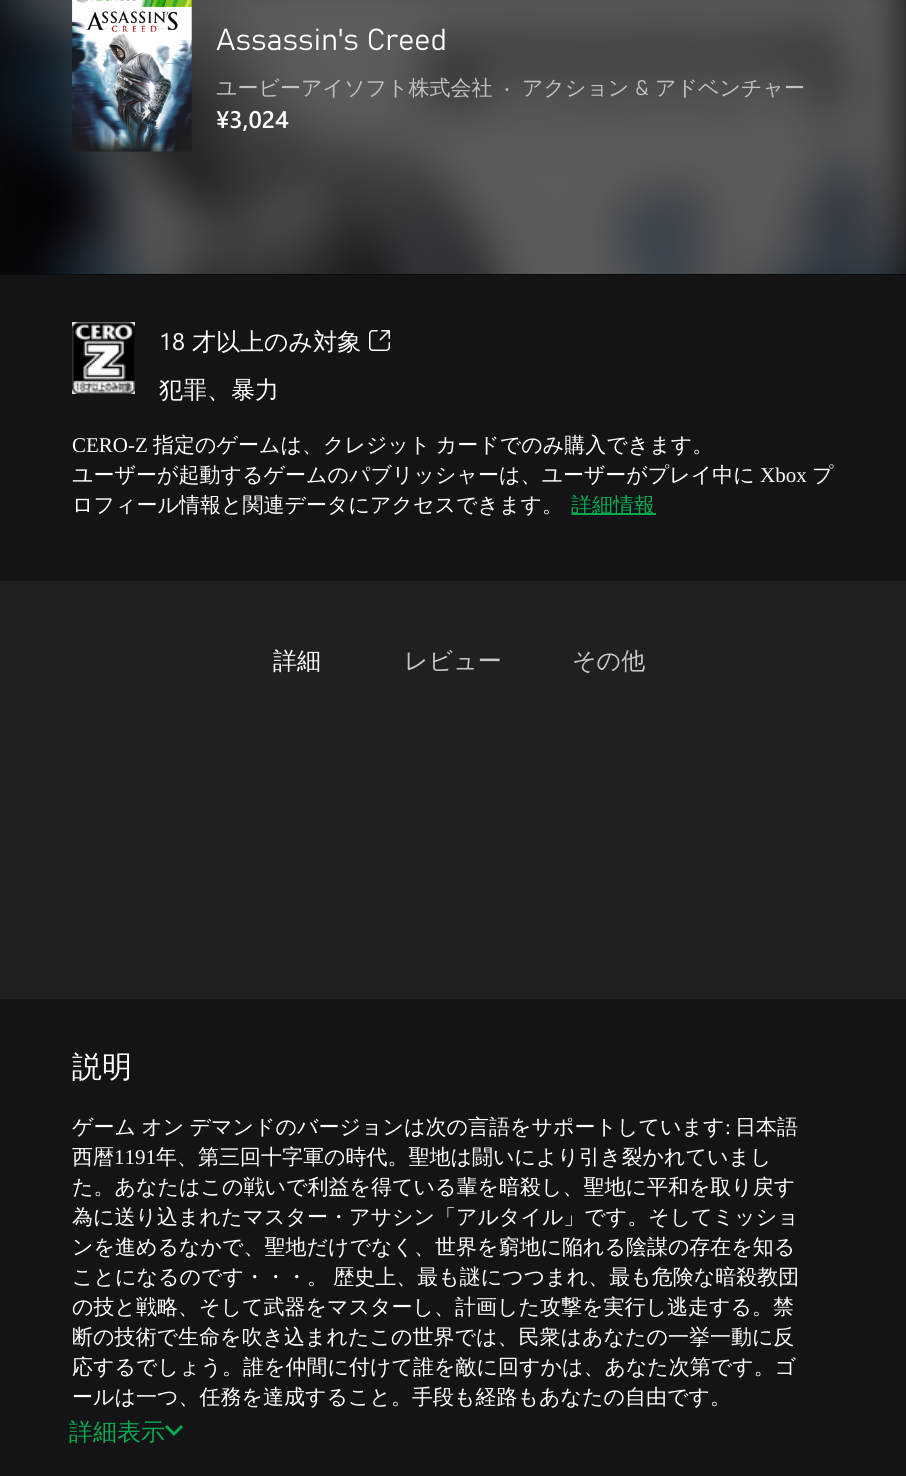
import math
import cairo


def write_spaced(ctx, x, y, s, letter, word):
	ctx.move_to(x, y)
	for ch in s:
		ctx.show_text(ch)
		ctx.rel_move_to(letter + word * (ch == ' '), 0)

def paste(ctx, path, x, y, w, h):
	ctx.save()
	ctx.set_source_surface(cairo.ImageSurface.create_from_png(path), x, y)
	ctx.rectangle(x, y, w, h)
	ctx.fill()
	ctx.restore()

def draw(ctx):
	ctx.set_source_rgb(0.125, 0.122, 0.141)
	ctx.paint()
	ctx.set_source_rgb(0.047, 0.043, 0.051)
	ctx.rectangle(0, 0, 906, 275)
	ctx.fill()
	paste(ctx, 'media/1.png', 0, 0, 906, 274)
	paste(ctx, 'media/2.png', 72, 0, 120, 152)
	ctx.select_font_face('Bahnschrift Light')
	ctx.set_font_size(30)
	ctx.set_source_rgb(1, 1, 1)
	ctx.move_to(216, 50)
	ctx.show_text('Assassin\'s Creed')
	ctx.select_font_face('WenQuanYi Zen Hei Medium')
	ctx.set_font_size(21)
	ctx.set_source_rgb(0.757, 0.757, 0.757)
	ctx.move_to(216, 95)
	ctx.show_text('ユービーアイソフト株式会社')
	ctx.select_font_face('Bahnschrift Light')
	ctx.move_to(504, 95)
	ctx.show_text('•')
	ctx.select_font_face('WenQuanYi Zen Hei Medium')
	ctx.move_to(522, 95)
	ctx.show_text('アクション')
	ctx.select_font_face('Bahnschrift Light')
	ctx.move_to(635, 95)
	ctx.show_text('&')
	ctx.select_font_face('WenQuanYi Zen Hei Medium')
	ctx.move_to(655, 95)
	ctx.show_text('アドベンチャー')
	ctx.select_font_face('Segoe UI SemiBold')
	ctx.set_font_size(24)
	ctx.set_source_rgb(1, 1, 1)
	ctx.move_to(216, 128)
	ctx.show_text('¥3,024')
	ctx.set_source_rgb(0.082, 0.082, 0.09)
	ctx.rectangle(0, 275, 906, 306)
	ctx.fill()
	paste(ctx, 'media/3.png', 72, 322, 63, 72)
	ctx.select_font_face('Segoe UI')
	ctx.set_source_rgb(1, 1, 1)
	ctx.move_to(159, 350)
	ctx.show_text('18')
	ctx.select_font_face('WenQuanYi Zen Hei Medium')
	ctx.move_to(192, 350)
	ctx.show_text('才以上のみ対象')
	paste(ctx, 'media/4.png', 369, 330, 21, 21)
	ctx.move_to(159, 398)
	ctx.show_text('犯罪、暴力')
	ctx.select_font_face('Liberation Serif')
	ctx.set_font_size(21)
	ctx.move_to(72, 452)
	ctx.show_text('CERO-Z')
	ctx.select_font_face('WenQuanYi Zen Hei Medium')
	write_spaced(ctx, 153, 452, '指定のゲームは、クレジット カードでのみ購入できます。', 0, -1)
	ctx.move_to(72, 482)
	ctx.show_text('ユーザーが起動するゲームのパブリッシャーは、ユーザーがプレイ中に')
	ctx.select_font_face('Liberation Serif')
	ctx.move_to(760, 482)
	ctx.show_text('Xbox')
	ctx.select_font_face('WenQuanYi Zen Hei Medium')
	ctx.move_to(812, 482)
	ctx.show_text('プ')
	ctx.move_to(72, 512)
	ctx.show_text('ロフィール情報と関連データにアクセスできます。')
	ctx.set_source_rgb(0.016, 0.671, 0.31)
	ctx.rectangle(572, 513, 84, 2)
	ctx.fill()
	ctx.move_to(571, 512)
	ctx.show_text('詳細情報')
	ctx.set_font_size(24)
	ctx.set_source_rgb(1, 1, 1)
	ctx.move_to(273, 669)
	ctx.show_text('詳細')
	ctx.set_source_rgb(0.78, 0.78, 0.784)
	ctx.move_to(404, 669)
	ctx.show_text('レビュー')
	ctx.move_to(572, 669)
	ctx.show_text('その他')
	ctx.set_source_rgb(0.082, 0.082, 0.09)
	ctx.rectangle(0, 999, 906, 477)
	ctx.fill()
	ctx.set_font_size(30)
	ctx.set_source_rgb(1, 1, 1)
	ctx.move_to(72, 1077)
	ctx.show_text('説明')
	ctx.set_font_size(21)
	write_spaced(ctx, 72, 1134, 'ゲーム オン デマンドのバージョンは次の言語をサポートしています', 0, -1)
	ctx.select_font_face('Liberation Serif')
	ctx.move_to(725, 1134)
	ctx.show_text(':')
	ctx.select_font_face('WenQuanYi Zen Hei Medium')
	ctx.move_to(735, 1134)
	ctx.show_text('日本語')
	ctx.move_to(72, 1164)
	ctx.show_text('西暦')
	ctx.select_font_face('Liberation Serif')
	ctx.move_to(114, 1164)
	ctx.show_text('1191')
	ctx.select_font_face('WenQuanYi Zen Hei Medium')
	for x, y, s in [
		(156, 1164, '年、第三回十字軍の時代。聖地は闘いにより引き裂かれていまし'),
		(72, 1194, 'た。あなたはこの戦いで利益を得ている輩を暗殺し、聖地に平和を取り戻す'),
		(72, 1224, '為に送り込まれたマスター・アサシン「アルタイル」です。そしてミッショ'),
		(72, 1254, 'ンを進めるなかで、聖地だけでなく、世界を窮地に陥れる陰謀の存在を知る'),
	]:
		ctx.move_to(x, y)
		ctx.show_text(s)
	write_spaced(ctx, 72, 1284, 'ことになるのです・・・。 歴史上、最も謎につつまれ、最も危険な暗殺教団', 0, -1)
	for x, y, s in [
		(72, 1314, 'の技と戦略、そして武器をマスターし、計画した攻撃を実行し逃走する。禁'),
		(72, 1344, '断の技術で生命を吹き込まれたこの世界では、民衆はあなたの一挙一動に反'),
		(72, 1374, '応するでしょう。誰を仲間に付けて誰を敵に回すかは、あなた次第です。ゴ'),
		(72, 1404, 'ールは一つ、任務を達成すること。手段も経路もあなたの自由です。'),
	]:
		ctx.move_to(x, y)
		ctx.show_text(s)
	ctx.set_font_size(24)
	ctx.set_source_rgb(0.016, 0.671, 0.31)
	ctx.move_to(69, 1440)
	ctx.show_text('詳細表示')
	ctx.new_path()
	ctx.move_to(181, 1425)
	ctx.line_to(183, 1427)
	ctx.line_to(174, 1436)
	ctx.line_to(165, 1427)
	ctx.line_to(167, 1425)
	ctx.line_to(174, 1432)
	ctx.close_path()
	ctx.fill()


surface = cairo.ImageSurface(cairo.FORMAT_RGB24, 906, 1476)
ctx = cairo.Context(surface)
options = cairo.FontOptions()
options.set_hint_metrics(cairo.HINT_METRICS_OFF)
options.set_hint_style(cairo.HINT_STYLE_NONE)
ctx.set_font_options(options)
ctx.set_miter_limit(4)
draw(ctx)
surface.write_to_png('image.png')
